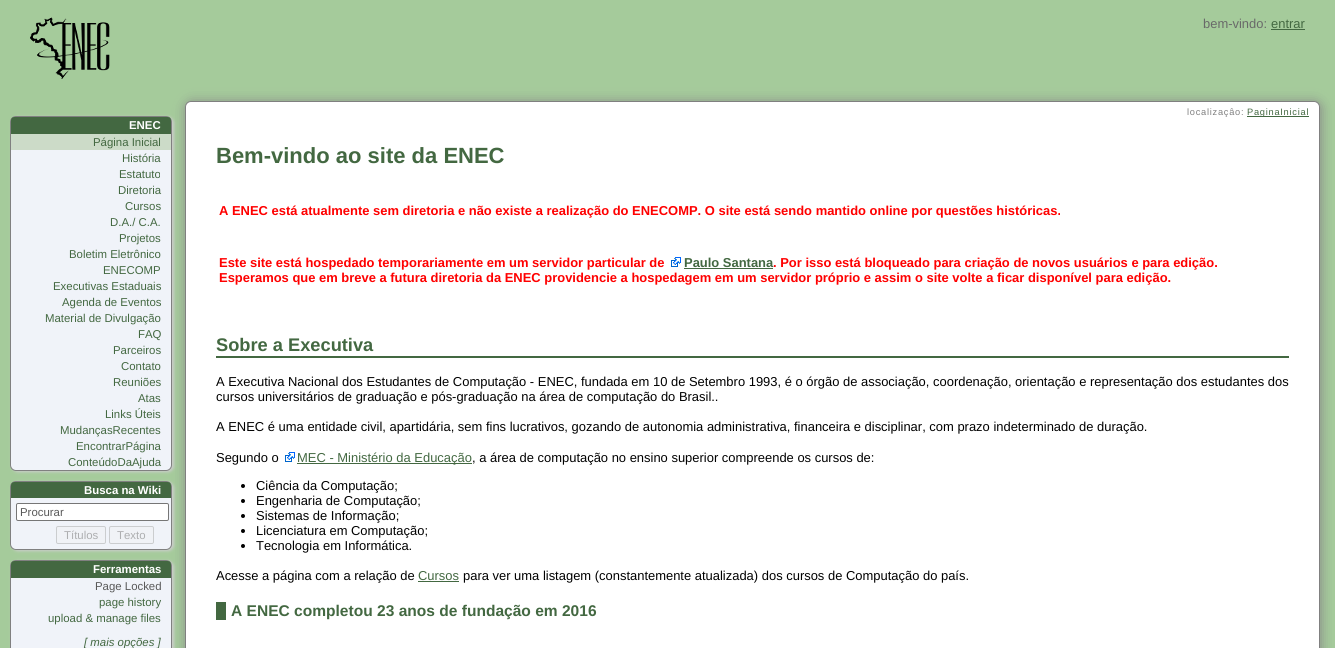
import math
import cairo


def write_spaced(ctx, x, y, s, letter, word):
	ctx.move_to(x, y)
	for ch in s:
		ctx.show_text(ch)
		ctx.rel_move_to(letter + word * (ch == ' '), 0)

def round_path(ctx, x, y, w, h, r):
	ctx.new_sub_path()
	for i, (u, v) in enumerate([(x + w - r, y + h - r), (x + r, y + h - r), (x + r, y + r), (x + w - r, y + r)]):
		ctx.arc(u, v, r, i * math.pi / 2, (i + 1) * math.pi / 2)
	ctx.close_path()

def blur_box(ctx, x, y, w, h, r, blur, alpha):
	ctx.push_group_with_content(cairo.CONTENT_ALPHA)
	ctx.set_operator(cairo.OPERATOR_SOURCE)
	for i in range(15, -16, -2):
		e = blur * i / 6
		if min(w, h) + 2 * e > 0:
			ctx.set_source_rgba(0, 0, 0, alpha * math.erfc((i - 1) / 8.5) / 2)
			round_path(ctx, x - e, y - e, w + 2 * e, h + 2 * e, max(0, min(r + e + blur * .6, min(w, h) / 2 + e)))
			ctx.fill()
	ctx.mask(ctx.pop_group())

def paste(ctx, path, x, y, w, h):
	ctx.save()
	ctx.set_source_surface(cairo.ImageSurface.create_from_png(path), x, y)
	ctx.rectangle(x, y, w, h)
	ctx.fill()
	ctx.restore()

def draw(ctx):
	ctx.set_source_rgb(0.647, 0.796, 0.608)
	ctx.paint()
	paste(ctx, 'media/1.png', 30, 17, 80, 62)
	ctx.select_font_face('Liberation Sans')
	ctx.set_font_size(12.95)
	ctx.set_source_rgb(0.412, 0.412, 0.412)
	ctx.move_to(1203, 28)
	ctx.show_text('bem-vindo:')
	ctx.set_source_rgb(0.263, 0.408, 0.255)
	ctx.move_to(1271, 28)
	ctx.show_text('entrar')
	ctx.rectangle(1271, 29, 34, 1)
	ctx.fill()
	ctx.set_source_rgb(0.8, 0.8, 0.8)
	blur_box(ctx, 12, 117, 162, 355, 6, 1.5, 1)
	ctx.set_source_rgb(0.533, 0.533, 0.533)
	blur_box(ctx, 186, 102, 1135, 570, 6, 6, 1)
	ctx.set_source_rgb(0.941, 0.953, 0.973)
	round_path(ctx, 10.5, 116.5, 161, 354, 5.5)
	ctx.fill_preserve()
	ctx.set_source_rgb(0.502, 0.502, 0.502)
	ctx.set_line_width(1)
	ctx.stroke()
	ctx.set_source_rgb(0.263, 0.408, 0.255)
	ctx.new_path()
	ctx.move_to(14, 117)
	ctx.line_to(168, 117)
	ctx.curve_to(169.5, 117, 171, 118.5, 171, 120)
	ctx.line_to(171, 134)
	ctx.line_to(11, 134)
	ctx.line_to(11, 120)
	ctx.curve_to(11, 118.5, 12.5, 117, 14, 117)
	ctx.close_path()
	ctx.fill()
	ctx.select_font_face('Liberation Sans', cairo.FONT_SLANT_NORMAL, cairo.FONT_WEIGHT_BOLD)
	ctx.set_font_size(11.4)
	ctx.set_source_rgb(1, 1, 1)
	ctx.move_to(129, 129)
	ctx.show_text('ENEC')
	ctx.set_source_rgb(0.8, 0.859, 0.784)
	ctx.rectangle(11, 134, 160, 16)
	ctx.fill()
	ctx.select_font_face('Liberation Sans')
	ctx.set_source_rgb(0.263, 0.408, 0.255)
	for x, y, s in [
		(93, 146, 'Página Inicial'),
		(122, 162, 'História'),
		(119, 178, 'Estatuto'),
		(118, 194, 'Diretoria'),
		(125, 210, 'Cursos'),
		(110, 226, 'D.A./ C.A.'),
		(119, 242, 'Projetos'),
		(69, 258, 'Boletim Eletrônico'),
		(103, 274, 'ENECOMP'),
		(53, 290, 'Executivas Estaduais'),
		(62, 306, 'Agenda de Eventos'),
		(45, 322, 'Material de Divulgação'),
		(138, 338, 'FAQ'),
		(113, 354, 'Parceiros'),
		(121, 370, 'Contato'),
		(113, 386, 'Reuniões'),
		(138, 402, 'Atas'),
		(105, 418, 'Links Úteis'),
		(60, 434, 'MudançasRecentes'),
		(76, 450, 'EncontrarPágina'),
		(68, 466, 'ConteúdoDaAjuda'),
	]:
		ctx.move_to(x, y)
		ctx.show_text(s)
	ctx.set_source_rgb(0.8, 0.8, 0.8)
	blur_box(ctx, 12, 482, 162, 69, 6, 1.5, 1)
	ctx.set_source_rgb(0.941, 0.953, 0.973)
	round_path(ctx, 10.5, 481.5, 161, 68, 5.5)
	ctx.fill_preserve()
	ctx.set_source_rgb(0.502, 0.502, 0.502)
	ctx.stroke()
	ctx.set_source_rgb(0.263, 0.408, 0.255)
	ctx.new_path()
	ctx.move_to(14, 482)
	ctx.line_to(168, 482)
	ctx.curve_to(169.5, 482, 171, 483.5, 171, 485)
	ctx.line_to(171, 498)
	ctx.line_to(11, 498)
	ctx.line_to(11, 485)
	ctx.curve_to(11, 483.5, 12.5, 482, 14, 482)
	ctx.close_path()
	ctx.fill()
	ctx.select_font_face('Liberation Sans', cairo.FONT_SLANT_NORMAL, cairo.FONT_WEIGHT_BOLD)
	ctx.set_source_rgb(1, 1, 1)
	ctx.move_to(84, 494)
	ctx.show_text('Busca na Wiki')
	round_path(ctx, 16.5, 503.5, 152, 17, 1.5)
	ctx.fill_preserve()
	ctx.set_source_rgb(0.463, 0.463, 0.463)
	ctx.stroke()
	ctx.select_font_face('Liberation Sans')
	ctx.set_source_rgb(0.349, 0.349, 0.349)
	ctx.move_to(20, 516)
	ctx.show_text('Procurar')
	ctx.set_source_rgb(0.941, 0.949, 0.961)
	round_path(ctx, 56.5, 526.5, 49, 17, 1.5)
	ctx.fill_preserve()
	ctx.set_source_rgb(0.796, 0.804, 0.812)
	ctx.stroke()
	ctx.set_source_rgb(0.678, 0.682, 0.69)
	ctx.move_to(64, 539)
	ctx.show_text('Títulos')
	ctx.set_source_rgb(0.941, 0.949, 0.961)
	round_path(ctx, 109.5, 526.5, 44, 17, 1.5)
	ctx.fill_preserve()
	ctx.set_source_rgb(0.796, 0.804, 0.812)
	ctx.stroke()
	ctx.set_source_rgb(0.678, 0.682, 0.69)
	ctx.move_to(117, 539)
	ctx.show_text('Texto')
	ctx.set_source_rgb(0.8, 0.8, 0.8)
	blur_box(ctx, 12, 561, 162, 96, 6, 1.5, 1)
	ctx.set_source_rgb(0.941, 0.953, 0.973)
	round_path(ctx, 10.5, 560.5, 161, 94, 5.5)
	ctx.fill_preserve()
	ctx.set_source_rgb(0.502, 0.502, 0.502)
	ctx.stroke()
	ctx.set_source_rgb(0.263, 0.408, 0.255)
	ctx.new_path()
	ctx.move_to(14, 561)
	ctx.line_to(168, 561)
	ctx.curve_to(169.5, 561, 171, 562.5, 171, 564)
	ctx.line_to(171, 578)
	ctx.line_to(11, 578)
	ctx.line_to(11, 564)
	ctx.curve_to(11, 562.5, 12.5, 561, 14, 561)
	ctx.close_path()
	ctx.fill()
	ctx.select_font_face('Liberation Sans', cairo.FONT_SLANT_NORMAL, cairo.FONT_WEIGHT_BOLD)
	ctx.set_source_rgb(1, 1, 1)
	ctx.move_to(93, 573)
	ctx.show_text('Ferramentas')
	ctx.select_font_face('Liberation Sans')
	ctx.set_source_rgb(0.349, 0.349, 0.349)
	ctx.move_to(95, 590)
	ctx.show_text('Page Locked')
	ctx.set_source_rgb(0.263, 0.408, 0.255)
	ctx.move_to(99, 606)
	ctx.show_text('page history')
	ctx.move_to(48, 622)
	ctx.show_text('upload & manage files')
	ctx.select_font_face('Liberation Sans', cairo.FONT_SLANT_ITALIC)
	ctx.move_to(84, 646)
	ctx.show_text('[ mais opções ]')
	ctx.set_source_rgb(1, 1, 1)
	round_path(ctx, 185.5, 101.5, 1134, 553, 5.5)
	ctx.fill_preserve()
	ctx.set_source_rgb(0.502, 0.502, 0.502)
	ctx.stroke()
	ctx.select_font_face('Liberation Sans')
	ctx.set_font_size(9.25)
	write_spaced(ctx, 1187, 115, 'localizaçâo:', 0.75, 0)
	ctx.set_source_rgb(0.263, 0.408, 0.255)
	ctx.rectangle(1247, 116, 62, 1)
	ctx.fill()
	write_spaced(ctx, 1247, 115, 'PaginaInicial', 0.75, 0)
	ctx.select_font_face('Liberation Sans', cairo.FONT_SLANT_NORMAL, cairo.FONT_WEIGHT_BOLD)
	ctx.set_font_size(22)
	ctx.move_to(216, 163)
	ctx.show_text('Bem-vindo ao site da ENEC')
	ctx.set_font_size(12.95)
	ctx.set_source_rgb(1, 0, 0)
	ctx.move_to(219, 215)
	ctx.show_text('A ENEC está atualmente sem diretoria e não existe a realização do ENECOMP. O site está sendo mantido online por questões históricas.')
	ctx.move_to(219, 267)
	ctx.show_text('Este site está hospedado temporariamente em um servidor particular de')
	paste(ctx, 'media/2.png', 671, 257, 10, 10)
	ctx.set_source_rgb(0.263, 0.408, 0.255)
	ctx.move_to(684, 267)
	ctx.show_text('Paulo Santana')
	ctx.rectangle(684, 268, 89, 1)
	ctx.fill()
	ctx.set_source_rgb(1, 0, 0)
	ctx.move_to(773, 267)
	ctx.show_text('. Por isso está bloqueado para criação de novos usuários e para edição.')
	ctx.move_to(219, 282)
	ctx.show_text('Esperamos que em breve a futura diretoria da ENEC providencie a hospedagem em um servidor próprio e assim o site volte a ficar disponível para edição.')
	ctx.set_source_rgb(0.263, 0.408, 0.255)
	ctx.rectangle(216, 356, 1073, 2)
	ctx.fill()
	ctx.set_font_size(18.25)
	ctx.move_to(216, 351)
	ctx.show_text('Sobre a Executiva')
	ctx.select_font_face('Liberation Sans')
	ctx.set_font_size(12.95)
	ctx.set_source_rgb(0, 0, 0)
	for x, y, s in [
		(216, 386, 'A Executiva Nacional dos Estudantes de Computação - ENEC, fundada em 10 de Setembro 1993, é o órgão de associação, coordenação, orientação e representação dos estudantes dos'),
		(216, 401, 'cursos universitários de graduação e pós-graduação na área de computação do Brasil..'),
		(216, 431, 'A ENEC é uma entidade civil, apartidária, sem fins lucrativos, gozando de autonomia administrativa, financeira e disciplinar, com prazo indeterminado de duração.'),
		(216, 462, 'Segundo o'),
	]:
		ctx.move_to(x, y)
		ctx.show_text(s)
	paste(ctx, 'media/2.png', 285, 452, 10, 10)
	ctx.set_source_rgb(0.263, 0.408, 0.255)
	ctx.rectangle(297, 463, 175, 1)
	ctx.fill()
	ctx.move_to(297, 462)
	ctx.show_text('MEC - Ministério da Educação')
	ctx.set_source_rgb(0, 0, 0)
	ctx.move_to(472, 462)
	ctx.show_text(', a área de computação no ensino superior compreende os cursos de:')
	ctx.new_path()
	ctx.arc(243, 486, 2, 0, 2 * math.pi)
	ctx.fill()
	ctx.move_to(256, 490)
	ctx.show_text('Ciência da Computação;')
	ctx.new_path()
	ctx.arc(243, 501, 2, 0, 2 * math.pi)
	ctx.fill()
	ctx.move_to(256, 505)
	ctx.show_text('Engenharia de Computação;')
	ctx.new_path()
	ctx.arc(243, 516, 2, 0, 2 * math.pi)
	ctx.fill()
	ctx.move_to(256, 520)
	ctx.show_text('Sistemas de Informação;')
	ctx.new_path()
	ctx.arc(243, 531, 2, 0, 2 * math.pi)
	ctx.fill()
	ctx.move_to(256, 535)
	ctx.show_text('Licenciatura em Computação;')
	ctx.new_path()
	ctx.arc(243, 546, 2, 0, 2 * math.pi)
	ctx.fill()
	ctx.move_to(256, 550)
	ctx.show_text('Tecnologia em Informática.')
	ctx.move_to(216, 580)
	ctx.show_text('Acesse a página com a relação de')
	ctx.set_source_rgb(0.263, 0.408, 0.255)
	ctx.move_to(418, 580)
	ctx.show_text('Cursos')
	ctx.rectangle(418, 581, 41, 1)
	ctx.fill()
	ctx.set_source_rgb(0, 0, 0)
	ctx.move_to(463, 580)
	ctx.show_text('para ver uma listagem (constantemente atualizada) dos cursos de Computação do país.')
	ctx.set_source_rgb(0.263, 0.408, 0.255)
	ctx.rectangle(216, 602, 10, 18)
	ctx.fill()
	ctx.select_font_face('Liberation Sans', cairo.FONT_SLANT_NORMAL, cairo.FONT_WEIGHT_BOLD)
	ctx.set_font_size(15.55)
	ctx.move_to(231, 616)
	ctx.show_text('A ENEC completou 23 anos de fundação em 2016')


surface = cairo.ImageSurface(cairo.FORMAT_RGB24, 1335, 648)
ctx = cairo.Context(surface)
options = cairo.FontOptions()
options.set_hint_metrics(cairo.HINT_METRICS_OFF)
options.set_hint_style(cairo.HINT_STYLE_NONE)
ctx.set_font_options(options)
ctx.set_miter_limit(4)
draw(ctx)
surface.write_to_png('image.png')
